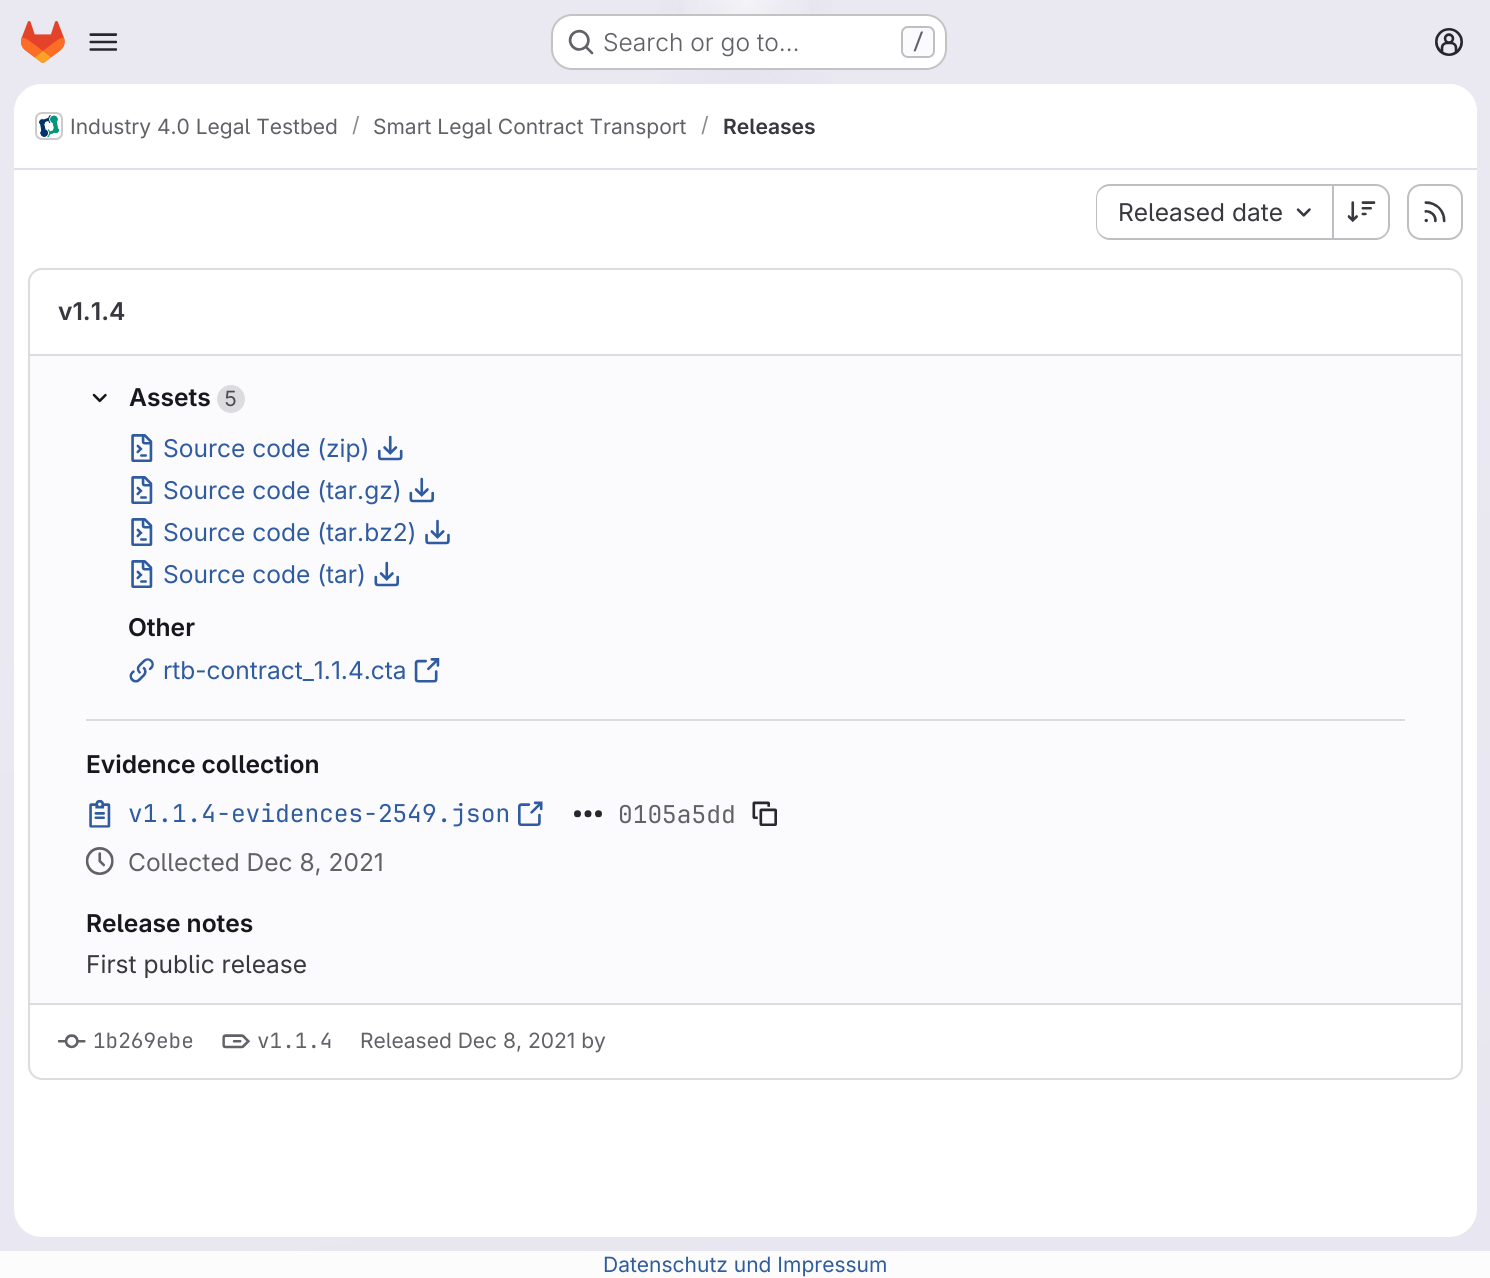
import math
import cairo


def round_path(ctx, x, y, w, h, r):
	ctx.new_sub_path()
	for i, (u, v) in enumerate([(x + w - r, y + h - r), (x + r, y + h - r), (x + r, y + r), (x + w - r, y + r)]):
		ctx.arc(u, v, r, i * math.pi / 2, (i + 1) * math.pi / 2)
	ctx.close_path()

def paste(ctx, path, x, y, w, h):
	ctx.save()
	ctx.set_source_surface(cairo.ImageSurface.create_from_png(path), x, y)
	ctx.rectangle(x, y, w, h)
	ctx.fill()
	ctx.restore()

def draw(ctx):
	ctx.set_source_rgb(1, 1, 1)
	ctx.paint()
	gradient = cairo.LinearGradient(877, 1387, 614, -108)
	gradient.add_color_stop_rgba(0, 0.91, 0.902, 0.941, 1)
	gradient.add_color_stop_rgba(0.7, 0.918, 0.914, 0.949, 1)
	ctx.set_source(gradient)
	ctx.rectangle(0, 0, 1490, 1251)
	ctx.fill()
	gradient = cairo.RadialGradient(0, 0, 0, 0, 0, 1)
	gradient.set_matrix(cairo.Matrix(1 / 746, 0, 0, 1 / 1279, -1 * 746 / 746, -1 * 0 / 1279))
	gradient.add_color_stop_rgba(0, 0.894, 0.886, 0.929, 1)
	gradient.add_color_stop_rgba(0.16, 0.894, 0.886, 0.929, 0)
	ctx.set_source(gradient)
	ctx.rectangle(660, 0, 172, 84)
	ctx.fill()
	gradient = cairo.RadialGradient(0, 0, 0, 0, 0, 1)
	gradient.set_matrix(cairo.Matrix(1 / 746, 0, 0, 1 / 1279, -1 * 746 / 746, -1 * 0 / 1279))
	gradient.add_color_stop_rgba(0, 0.894, 0.886, 0.925, 1)
	gradient.add_color_stop_rgba(0.12, 0.894, 0.886, 0.925, 0)
	ctx.set_source(gradient)
	ctx.rectangle(704, 5, 84, 59)
	ctx.fill()
	gradient = cairo.RadialGradient(746, 0, 0, 746, 0, 1481)
	gradient.add_color_stop_rgba(0, 1, 1, 1, 0.6)
	gradient.add_color_stop_rgba(0.05, 1, 1, 1, 0)
	ctx.set_source(gradient)
	ctx.rectangle(683, 0, 126, 14)
	ctx.fill()
	paste(ctx, 'media/1.png', 21, 21, 44, 42)
	paste(ctx, 'media/2.png', 89, 33, 29, 18)
	ctx.set_source_rgb(1, 1, 1)
	round_path(ctx, 551, 14, 396, 56, 21)
	ctx.fill()
	round_path(ctx, 552, 15, 394, 54, 20)
	ctx.set_source_rgba(0.02, 0.02, 0.024, 0.24)
	ctx.stroke()
	paste(ctx, 'media/3.png', 568, 29, 26, 26)
	ctx.select_font_face('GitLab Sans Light')
	ctx.set_font_size(24.5)
	ctx.set_source_rgb(0.384, 0.38, 0.408)
	ctx.move_to(603, 51)
	ctx.show_text('Search or go to…')
	ctx.set_source_rgb(0.984, 0.98, 0.992)
	round_path(ctx, 902, 27, 32, 30, 6)
	ctx.fill_preserve()
	ctx.set_source_rgb(0.749, 0.749, 0.765)
	ctx.stroke()
	ctx.select_font_face('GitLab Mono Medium')
	ctx.set_font_size(21)
	ctx.set_source_rgb(0.384, 0.38, 0.408)
	ctx.move_to(912, 49)
	ctx.show_text('/')
	paste(ctx, 'media/4.png', 1435, 28, 28, 28)
	ctx.set_source_rgb(1, 1, 1)
	round_path(ctx, 14, 84, 1463, 1153, 28)
	ctx.fill()
	ctx.new_path()
	ctx.move_to(42, 84)
	ctx.line_to(1449, 84)
	ctx.curve_to(1464.5, 84, 1477, 96.5, 1477, 112)
	ctx.line_to(1477, 170)
	ctx.line_to(14, 170)
	ctx.line_to(14, 112)
	ctx.curve_to(14, 96.5, 26.5, 84, 42, 84)
	ctx.close_path()
	ctx.fill()
	ctx.set_source_rgb(0.882, 0.875, 0.925)
	ctx.rectangle(14, 168, 1463, 2)
	ctx.fill()
	round_path(ctx, 36, 113, 26, 26, 6)
	ctx.set_source_rgb(0.863, 0.863, 0.871)
	ctx.stroke()
	paste(ctx, 'media/5.png', 39, 115, 20, 23)
	round_path(ctx, 36, 113, 26, 26, 6)
	ctx.set_source_rgba(0.02, 0.02, 0.024, 0.08)
	ctx.stroke()
	ctx.select_font_face('GitLab Sans')
	ctx.set_source_rgb(0.384, 0.38, 0.408)
	ctx.move_to(70, 134)
	ctx.show_text('Industry 4.0 Legal Testbed')
	ctx.set_source_rgb(0.537, 0.533, 0.553)
	ctx.move_to(352, 132)
	ctx.show_text('/')
	ctx.set_source_rgb(0.384, 0.38, 0.408)
	ctx.move_to(373, 134)
	ctx.show_text('Smart Legal Contract Transport')
	ctx.set_source_rgb(0.537, 0.533, 0.553)
	ctx.move_to(701, 132)
	ctx.show_text('/')
	ctx.select_font_face('GitLab Sans SemiBold')
	ctx.set_source_rgb(0.227, 0.22, 0.247)
	ctx.move_to(723, 134)
	ctx.show_text('Releases')
	ctx.set_source_rgb(0.749, 0.749, 0.765)
	ctx.set_fill_rule(cairo.FILL_RULE_EVEN_ODD)
	ctx.new_path()
	ctx.move_to(1110, 184)
	ctx.line_to(1332, 184)
	ctx.line_to(1332, 240)
	ctx.line_to(1110, 240)
	ctx.curve_to(1102, 240, 1096, 233, 1096, 226)
	ctx.line_to(1096, 198)
	ctx.curve_to(1096, 190, 1102, 184, 1110, 184)
	ctx.close_path()
	ctx.move_to(1110, 186)
	ctx.line_to(1332, 186)
	ctx.line_to(1332, 238)
	ctx.line_to(1110, 238)
	ctx.curve_to(1103, 238, 1097, 233, 1097, 226)
	ctx.line_to(1097, 198)
	ctx.curve_to(1097, 191, 1103, 186, 1110, 186)
	ctx.close_path()
	ctx.fill()
	ctx.select_font_face('GitLab Sans')
	ctx.set_font_size(24.5)
	ctx.set_source_rgb(0.227, 0.22, 0.247)
	ctx.move_to(1118, 221)
	ctx.show_text('Released date')
	paste(ctx, 'media/6.png', 1296, 208, 15, 9)
	ctx.set_source_rgb(0.749, 0.749, 0.765)
	ctx.new_path()
	ctx.move_to(1334, 184)
	ctx.line_to(1376, 184)
	ctx.curve_to(1383, 184, 1390, 190, 1390, 198)
	ctx.line_to(1390, 226)
	ctx.curve_to(1390, 233, 1383, 240, 1376, 240)
	ctx.line_to(1334, 240)
	ctx.close_path()
	ctx.move_to(1334, 186)
	ctx.line_to(1376, 186)
	ctx.curve_to(1382, 186, 1388, 191, 1388, 198)
	ctx.line_to(1388, 226)
	ctx.curve_to(1388, 233, 1382, 238, 1376, 238)
	ctx.line_to(1334, 238)
	ctx.close_path()
	ctx.fill()
	ctx.rectangle(1332, 184, 2, 56)
	ctx.fill()
	paste(ctx, 'media/7.png', 1347, 201, 29, 22)
	round_path(ctx, 1408, 185, 54, 54, 13)
	ctx.stroke()
	paste(ctx, 'media/8.png', 1424, 201, 22, 22)
	ctx.set_source_rgb(0.984, 0.98, 0.992)
	round_path(ctx, 29, 269, 1433, 810, 13)
	ctx.fill_preserve()
	ctx.set_source_rgb(0.863, 0.863, 0.871)
	ctx.stroke()
	ctx.set_source_rgb(1, 1, 1)
	ctx.new_path()
	ctx.move_to(44, 270)
	ctx.line_to(1447, 270)
	ctx.curve_to(1454.5, 270, 1461, 276.5, 1461, 284)
	ctx.line_to(1461, 355)
	ctx.line_to(30, 355)
	ctx.line_to(30, 284)
	ctx.curve_to(30, 276.5, 36.5, 270, 44, 270)
	ctx.close_path()
	ctx.fill()
	ctx.set_source_rgb(0.863, 0.863, 0.871)
	ctx.rectangle(30, 354, 1431, 2)
	ctx.fill()
	ctx.select_font_face('GitLab Sans SemiBold')
	ctx.set_source_rgb(0.227, 0.22, 0.247)
	ctx.move_to(58, 320)
	ctx.show_text('v1.1.4')
	ctx.set_source_rgb(0.863, 0.863, 0.871)
	ctx.rectangle(86, 719, 1319, 2)
	ctx.fill()
	paste(ctx, 'media/9.png', 92, 393, 15, 10)
	ctx.set_source_rgb(0.094, 0.09, 0.114)
	ctx.move_to(129, 406)
	ctx.show_text('Assets')
	ctx.set_source_rgb(0.863, 0.863, 0.871)
	ctx.new_path()
	ctx.arc(231, 399, 14, 0, 2 * math.pi)
	ctx.fill()
	ctx.select_font_face('GitLab Sans')
	ctx.set_font_size(21)
	ctx.set_source_rgb(0.298, 0.294, 0.318)
	ctx.move_to(224, 406)
	ctx.show_text('5')
	paste(ctx, 'media/10.png', 131, 434, 22, 28)
	ctx.set_font_size(24.5)
	ctx.set_source_rgb(0.184, 0.361, 0.627)
	ctx.move_to(163, 457)
	ctx.show_text('Source code (zip)')
	paste(ctx, 'media/11.png', 378, 435, 25, 26)
	paste(ctx, 'media/10.png', 131, 476, 22, 28)
	ctx.move_to(163, 499)
	ctx.show_text('Source code (tar.gz)')
	paste(ctx, 'media/12.png', 409, 477, 25, 26)
	paste(ctx, 'media/10.png', 131, 518, 22, 28)
	ctx.move_to(163, 541)
	ctx.show_text('Source code (tar.bz2)')
	paste(ctx, 'media/13.png', 425, 519, 25, 26)
	paste(ctx, 'media/10.png', 131, 560, 22, 28)
	ctx.move_to(163, 583)
	ctx.show_text('Source code (tar)')
	paste(ctx, 'media/12.png', 374, 561, 25, 26)
	ctx.select_font_face('GitLab Sans SemiBold')
	ctx.set_source_rgb(0.094, 0.09, 0.114)
	ctx.move_to(128, 636)
	ctx.show_text('Other')
	paste(ctx, 'media/14.png', 129, 658, 25, 25)
	ctx.select_font_face('GitLab Sans')
	ctx.set_source_rgb(0.184, 0.361, 0.627)
	ctx.move_to(163, 679)
	ctx.show_text('rtb-contract_1.1.4.cta')
	paste(ctx, 'media/15.png', 414, 658, 26, 25)
	ctx.select_font_face('GitLab Sans SemiBold')
	ctx.set_source_rgb(0.094, 0.09, 0.114)
	ctx.move_to(86, 773)
	ctx.show_text('Evidence collection')
	paste(ctx, 'media/16.png', 89, 799, 22, 29)
	ctx.select_font_face('GitLab Mono')
	ctx.set_source_rgb(0.184, 0.361, 0.627)
	ctx.move_to(128, 822)
	ctx.show_text('v1.1.4-evidences-2549.json')
	paste(ctx, 'media/17.png', 518, 801, 25, 25)
	paste(ctx, 'media/18.png', 574, 810, 28, 8)
	ctx.set_source_rgb(0.384, 0.38, 0.408)
	ctx.move_to(618, 823)
	ctx.show_text('0105a5dd')
	paste(ctx, 'media/19.png', 752, 801, 25, 25)
	paste(ctx, 'media/20.png', 85, 847, 29, 28)
	ctx.select_font_face('GitLab Sans')
	ctx.move_to(128, 871)
	ctx.show_text('Collected Dec 8, 2021')
	ctx.select_font_face('GitLab Sans SemiBold')
	ctx.set_source_rgb(0.094, 0.09, 0.114)
	ctx.move_to(86, 932)
	ctx.show_text('Release notes')
	ctx.select_font_face('GitLab Sans')
	ctx.set_source_rgb(0.227, 0.22, 0.247)
	ctx.move_to(86, 973)
	ctx.show_text('First public release')
	ctx.set_source_rgb(1, 1, 1)
	ctx.new_path()
	ctx.move_to(30, 1003)
	ctx.line_to(1461, 1003)
	ctx.line_to(1461, 1064)
	ctx.curve_to(1461, 1071.5, 1454.5, 1078, 1447, 1078)
	ctx.line_to(44, 1078)
	ctx.curve_to(36.5, 1078, 30, 1071.5, 30, 1064)
	ctx.close_path()
	ctx.fill()
	ctx.set_source_rgb(0.863, 0.863, 0.871)
	ctx.rectangle(30, 1003, 1431, 2)
	ctx.fill()
	paste(ctx, 'media/21.png', 57, 1034, 29, 15)
	ctx.select_font_face('GitLab Mono')
	ctx.set_font_size(21)
	ctx.set_source_rgb(0.384, 0.38, 0.408)
	ctx.move_to(93, 1048)
	ctx.show_text('1b269ebe')
	paste(ctx, 'media/22.png', 222, 1034, 28, 15)
	ctx.move_to(257, 1048)
	ctx.show_text('v1.1.4')
	ctx.select_font_face('GitLab Sans')
	ctx.move_to(360, 1048)
	ctx.show_text('Released Dec 8, 2021 by')
	ctx.set_source_rgb(0.988, 0.988, 0.988)
	ctx.rectangle(0, 1251, 1490, 27)
	ctx.fill()
	ctx.set_source_rgb(0.184, 0.361, 0.627)
	ctx.move_to(603, 1272)
	ctx.show_text('Datenschutz und Impressum')


surface = cairo.ImageSurface(cairo.FORMAT_RGB24, 1490, 1278)
ctx = cairo.Context(surface)
options = cairo.FontOptions()
options.set_hint_metrics(cairo.HINT_METRICS_OFF)
options.set_hint_style(cairo.HINT_STYLE_NONE)
ctx.set_font_options(options)
ctx.set_miter_limit(4)
draw(ctx)
surface.write_to_png('image.png')
